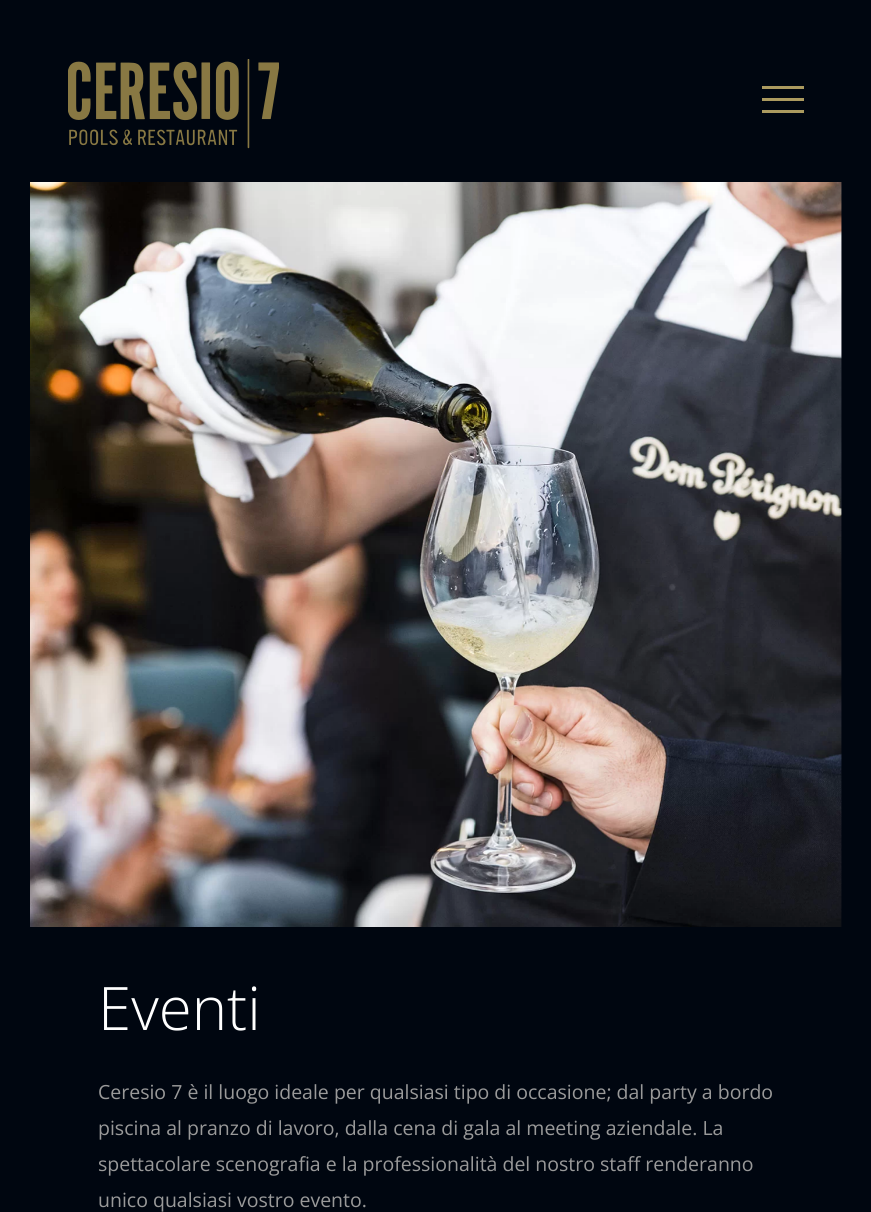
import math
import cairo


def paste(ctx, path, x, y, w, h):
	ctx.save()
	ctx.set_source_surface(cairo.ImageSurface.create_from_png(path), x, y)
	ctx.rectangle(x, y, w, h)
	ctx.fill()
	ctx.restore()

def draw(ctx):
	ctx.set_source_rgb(0, 0.027, 0.063)
	ctx.paint()
	paste(ctx, 'media/1.png', 68, 59, 211, 90)
	ctx.set_source_rgb(0.671, 0.604, 0.373)
	ctx.rectangle(762, 86, 42, 3)
	ctx.rectangle(762, 98, 42, 3)
	ctx.rectangle(762, 110, 42, 3)
	ctx.fill()
	paste(ctx, 'media/2.png', 30, 182, 812, 745)
	ctx.select_font_face('Open Sans Light')
	ctx.set_font_size(60)
	ctx.set_source_rgb(1, 1, 1)
	ctx.move_to(98, 1030)
	ctx.show_text('Eventi')
	ctx.select_font_face('Open Sans')
	ctx.set_font_size(19.5)
	ctx.set_source_rgb(0.6, 0.6, 0.6)
	for x, y, s in [
		(98, 1099, 'Ceresio 7 è il luogo ideale per qualsiasi tipo di occasione; dal party a bordo'),
		(98, 1135, 'piscina al pranzo di lavoro, dalla cena di gala al meeting aziendale. La'),
		(98, 1171, 'spettacolare scenografia e la professionalità del nostro staff renderanno'),
		(98, 1207, 'unico qualsiasi vostro evento.'),
	]:
		ctx.move_to(x, y)
		ctx.show_text(s)


surface = cairo.ImageSurface(cairo.FORMAT_RGB24, 871, 1212)
ctx = cairo.Context(surface)
options = cairo.FontOptions()
options.set_hint_metrics(cairo.HINT_METRICS_OFF)
options.set_hint_style(cairo.HINT_STYLE_NONE)
ctx.set_font_options(options)
ctx.set_miter_limit(4)
draw(ctx)
surface.write_to_png('image.png')
